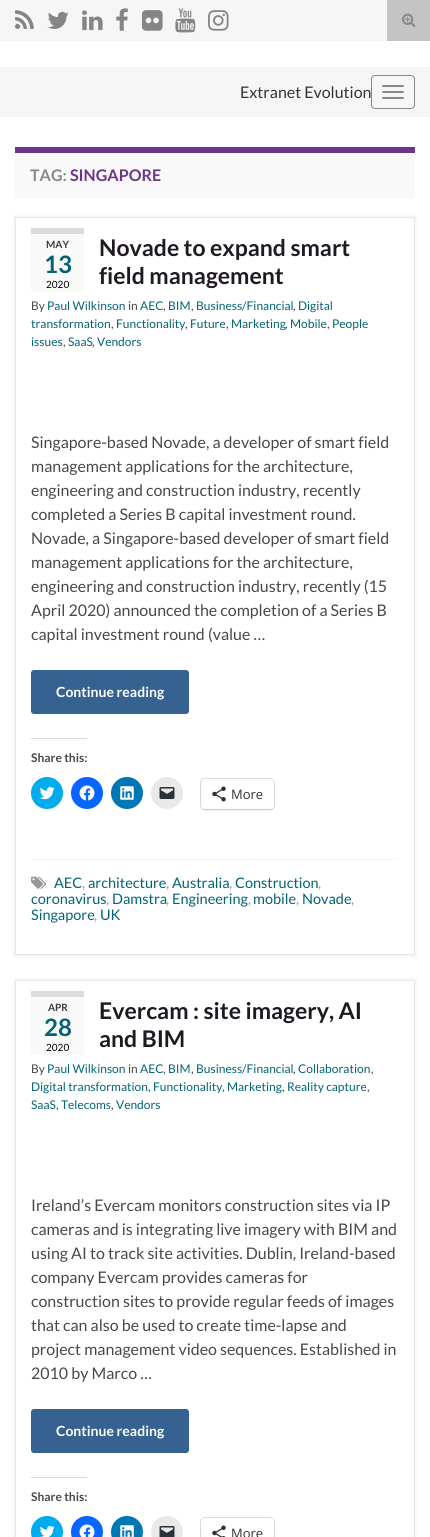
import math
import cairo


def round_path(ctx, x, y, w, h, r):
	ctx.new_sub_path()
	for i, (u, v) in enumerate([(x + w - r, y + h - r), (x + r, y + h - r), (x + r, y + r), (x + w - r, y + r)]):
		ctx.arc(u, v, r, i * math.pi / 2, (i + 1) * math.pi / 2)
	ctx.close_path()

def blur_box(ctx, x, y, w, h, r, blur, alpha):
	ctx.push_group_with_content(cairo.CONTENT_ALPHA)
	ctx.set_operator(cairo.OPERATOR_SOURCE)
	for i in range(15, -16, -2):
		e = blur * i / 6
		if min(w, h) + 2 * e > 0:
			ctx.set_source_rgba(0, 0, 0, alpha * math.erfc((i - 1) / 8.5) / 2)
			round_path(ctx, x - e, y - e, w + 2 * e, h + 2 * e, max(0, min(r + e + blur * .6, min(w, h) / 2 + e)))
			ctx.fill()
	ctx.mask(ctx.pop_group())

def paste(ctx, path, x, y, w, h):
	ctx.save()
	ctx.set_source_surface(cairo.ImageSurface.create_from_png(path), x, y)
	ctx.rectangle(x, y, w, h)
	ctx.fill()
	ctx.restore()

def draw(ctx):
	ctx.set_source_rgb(1, 1, 1)
	ctx.paint()
	ctx.set_source_rgb(0.961, 0.961, 0.961)
	ctx.rectangle(0, 0, 387, 41)
	ctx.fill()
	paste(ctx, 'media/1.png', 15, 10, 19, 19)
	paste(ctx, 'media/2.png', 47, 11, 22, 18)
	paste(ctx, 'media/3.png', 82, 10, 21, 21)
	paste(ctx, 'media/4.png', 116, 8, 12, 23)
	paste(ctx, 'media/5.png', 142, 10, 21, 21)
	paste(ctx, 'media/6.png', 175, 8, 21, 25)
	paste(ctx, 'media/7.png', 208, 10, 21, 21)
	ctx.set_source_rgb(0.769, 0.769, 0.769)
	ctx.rectangle(387, 0, 43, 41)
	ctx.fill()
	paste(ctx, 'media/8.png', 402, 13, 14, 14)
	ctx.set_source_rgb(0.961, 0.961, 0.961)
	ctx.rectangle(0, 67, 430, 50)
	ctx.fill()
	ctx.select_font_face('Lato')
	ctx.set_font_size(16)
	ctx.set_source_rgb(0.2, 0.2, 0.2)
	ctx.move_to(240, 98)
	ctx.show_text('Extranet Evolution')
	round_path(ctx, 371.5, 75.5, 43, 33, 3.5)
	ctx.set_source_rgb(0.533, 0.533, 0.533)
	ctx.set_line_width(1)
	ctx.stroke()
	round_path(ctx, 382, 85, 22, 2, 1)
	ctx.fill()
	round_path(ctx, 382, 91, 22, 2, 1)
	ctx.fill()
	round_path(ctx, 382, 97, 22, 2, 1)
	ctx.fill()
	ctx.set_source_rgb(0.976, 0.976, 0.976)
	ctx.rectangle(15, 153, 400, 46)
	ctx.fill()
	ctx.set_source_rgb(0.42, 0.208, 0.537)
	ctx.rectangle(15, 147, 400, 6)
	ctx.fill()
	ctx.select_font_face('Lato', cairo.FONT_SLANT_NORMAL, cairo.FONT_WEIGHT_BOLD)
	ctx.set_source_rgb(0.533, 0.533, 0.533)
	ctx.move_to(30, 181)
	ctx.show_text('TAG:')
	ctx.set_source_rgb(0.42, 0.208, 0.537)
	ctx.move_to(70, 181)
	ctx.show_text('SINGAPORE')
	ctx.save()
	ctx.set_fill_rule(cairo.FILL_RULE_EVEN_ODD)
	ctx.new_path()
	ctx.move_to(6, 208)
	ctx.line_to(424, 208)
	ctx.line_to(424, 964)
	ctx.line_to(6, 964)
	ctx.close_path()
	ctx.move_to(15, 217)
	ctx.line_to(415, 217)
	ctx.line_to(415, 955)
	ctx.line_to(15, 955)
	ctx.close_path()
	ctx.clip()
	ctx.set_source_rgb(0, 0, 0)
	blur_box(ctx, 15, 217, 400, 738, 0, 2.5, 0.1)
	ctx.restore()
	ctx.rectangle(15.5, 217.5, 399, 737)
	ctx.set_source_rgb(0.914, 0.91, 0.89)
	ctx.stroke()
	ctx.set_source_rgb(0.976, 0.976, 0.976)
	ctx.rectangle(31, 234, 53, 58)
	ctx.fill()
	ctx.set_source_rgb(0.859, 0.859, 0.859)
	ctx.rectangle(31, 228, 53, 6)
	ctx.fill()
	ctx.set_font_size(10)
	ctx.set_source_rgb(0.231, 0.22, 0.239)
	ctx.move_to(46, 248)
	ctx.show_text('MAY')
	ctx.set_font_size(24)
	ctx.set_source_rgb(0.008, 0.388, 0.451)
	ctx.move_to(44, 273)
	ctx.show_text('13')
	ctx.select_font_face('Lato')
	ctx.set_font_size(10)
	ctx.set_source_rgb(0, 0, 0)
	ctx.move_to(46, 288)
	ctx.show_text('2020')
	ctx.select_font_face('Lato', cairo.FONT_SLANT_NORMAL, cairo.FONT_WEIGHT_BOLD)
	ctx.set_font_size(23)
	ctx.set_source_rgb(0.122, 0.102, 0.133)
	ctx.move_to(99, 256)
	ctx.show_text('Novade to expand smart')
	ctx.move_to(99, 284)
	ctx.show_text('field management')
	ctx.select_font_face('Lato')
	ctx.set_font_size(12)
	ctx.set_source_rgb(0.29, 0.278, 0.294)
	ctx.move_to(31, 310)
	ctx.show_text('By')
	ctx.set_source_rgb(0.008, 0.388, 0.451)
	ctx.move_to(47, 310)
	ctx.show_text('Paul Wilkinson')
	ctx.set_source_rgb(0.29, 0.278, 0.294)
	ctx.move_to(128, 310)
	ctx.show_text('in')
	ctx.set_source_rgb(0.008, 0.388, 0.451)
	ctx.move_to(140, 310)
	ctx.show_text('AEC')
	ctx.set_source_rgb(0.29, 0.278, 0.294)
	ctx.move_to(163, 310)
	ctx.show_text(',')
	ctx.set_source_rgb(0.008, 0.388, 0.451)
	ctx.move_to(168, 310)
	ctx.show_text('BIM')
	ctx.set_source_rgb(0.29, 0.278, 0.294)
	ctx.move_to(191, 310)
	ctx.show_text(',')
	ctx.set_source_rgb(0.008, 0.388, 0.451)
	ctx.move_to(196, 310)
	ctx.show_text('Business/Financial')
	ctx.set_source_rgb(0.29, 0.278, 0.294)
	ctx.move_to(293, 310)
	ctx.show_text(',')
	ctx.set_source_rgb(0.008, 0.388, 0.451)
	ctx.move_to(298, 310)
	ctx.show_text('Digital')
	ctx.move_to(31, 328)
	ctx.show_text('transformation')
	ctx.set_source_rgb(0.29, 0.278, 0.294)
	ctx.move_to(111, 328)
	ctx.show_text(',')
	ctx.set_source_rgb(0.008, 0.388, 0.451)
	ctx.move_to(116, 328)
	ctx.show_text('Functionality')
	ctx.set_source_rgb(0.29, 0.278, 0.294)
	ctx.move_to(185, 328)
	ctx.show_text(',')
	ctx.set_source_rgb(0.008, 0.388, 0.451)
	ctx.move_to(190, 328)
	ctx.show_text('Future')
	ctx.set_source_rgb(0.29, 0.278, 0.294)
	ctx.move_to(226, 328)
	ctx.show_text(',')
	ctx.set_source_rgb(0.008, 0.388, 0.451)
	ctx.move_to(231, 328)
	ctx.show_text('Marketing')
	ctx.set_source_rgb(0.29, 0.278, 0.294)
	ctx.move_to(285, 328)
	ctx.show_text(',')
	ctx.set_source_rgb(0.008, 0.388, 0.451)
	ctx.move_to(290, 328)
	ctx.show_text('Mobile')
	ctx.set_source_rgb(0.29, 0.278, 0.294)
	ctx.move_to(327, 328)
	ctx.show_text(',')
	ctx.set_source_rgb(0.008, 0.388, 0.451)
	ctx.move_to(332, 328)
	ctx.show_text('People')
	ctx.move_to(31, 346)
	ctx.show_text('issues')
	ctx.set_source_rgb(0.29, 0.278, 0.294)
	ctx.move_to(63, 346)
	ctx.show_text(',')
	ctx.set_source_rgb(0.008, 0.388, 0.451)
	ctx.move_to(68, 346)
	ctx.show_text('SaaS')
	ctx.set_source_rgb(0.29, 0.278, 0.294)
	ctx.move_to(92, 346)
	ctx.show_text(',')
	ctx.set_source_rgb(0.008, 0.388, 0.451)
	ctx.move_to(97, 346)
	ctx.show_text('Vendors')
	ctx.set_font_size(16)
	ctx.set_source_rgb(0.29, 0.278, 0.294)
	for x, y, s in [
		(31, 448, 'Singapore-based Novade, a developer of smart field'),
		(31, 472, 'management applications for the architecture,'),
		(31, 496, 'engineering and construction industry, recently'),
		(31, 520, 'completed a Series B capital investment round.'),
		(31, 544, 'Novade, a Singapore-based developer of smart field'),
		(31, 568, 'management applications for the architecture,'),
		(31, 592, 'engineering and construction industry, recently (15'),
		(31, 616, 'April 2020) announced the completion of a Series B'),
		(31, 640, 'capital investment round (value …'),
	]:
		ctx.move_to(x, y)
		ctx.show_text(s)
	ctx.set_source_rgb(0.208, 0.384, 0.569)
	round_path(ctx, 31, 670, 158, 44, 3)
	ctx.fill()
	ctx.select_font_face('Lato', cairo.FONT_SLANT_NORMAL, cairo.FONT_WEIGHT_BOLD)
	ctx.set_font_size(14)
	ctx.set_source_rgb(1, 1, 1)
	ctx.move_to(56, 697)
	ctx.show_text('Continue reading')
	ctx.set_source_rgb(0.863, 0.863, 0.871)
	ctx.rectangle(31, 738, 56, 1)
	ctx.fill()
	ctx.set_font_size(12)
	ctx.set_source_rgb(0.29, 0.278, 0.294)
	ctx.move_to(31, 762)
	ctx.show_text('Share this:')
	ctx.set_source_rgb(0, 0.675, 0.933)
	ctx.new_path()
	ctx.arc(47, 793, 16, 0, 2 * math.pi)
	ctx.fill()
	paste(ctx, 'media/9.png', 39, 787, 16, 13)
	ctx.set_source_rgb(0.031, 0.4, 1)
	ctx.arc(87, 793, 16, 0, 2 * math.pi)
	ctx.fill()
	paste(ctx, 'media/10.png', 79, 785, 16, 16)
	ctx.set_source_rgb(0, 0.467, 0.71)
	ctx.arc(127, 793, 16, 0, 2 * math.pi)
	ctx.fill()
	paste(ctx, 'media/11.png', 120, 786, 14, 14)
	ctx.set_source_rgb(0.914, 0.914, 0.914)
	ctx.arc(167, 793, 16, 0, 2 * math.pi)
	ctx.fill()
	paste(ctx, 'media/12.png', 159, 787, 16, 12)
	round_path(ctx, 200.5, 778.5, 74, 31, 4.5)
	ctx.set_source_rgb(0.878, 0.878, 0.878)
	ctx.stroke()
	ctx.set_source_rgb(0, 0, 0)
	blur_box(ctx, 201, 780, 73, 30, 4, 1, 0.12)
	ctx.set_source_rgb(1, 1, 1)
	round_path(ctx, 201, 779, 73, 30, 4)
	ctx.fill()
	paste(ctx, 'media/13.png', 212, 786, 14, 16)
	ctx.select_font_face('Open Sans')
	ctx.set_font_size(13)
	ctx.set_source_rgb(0.173, 0.2, 0.22)
	ctx.move_to(231, 799)
	ctx.show_text('More')
	ctx.set_source_rgb(0.961, 0.961, 0.961)
	ctx.rectangle(31, 859, 368, 1)
	ctx.fill()
	paste(ctx, 'media/14.png', 31, 876, 16, 13)
	ctx.select_font_face('Lato')
	ctx.set_font_size(14.5)
	ctx.set_source_rgb(0.008, 0.388, 0.451)
	ctx.move_to(54, 888)
	ctx.show_text('AEC')
	ctx.set_source_rgb(0.596, 0.596, 0.596)
	ctx.move_to(82, 888)
	ctx.show_text(',')
	ctx.set_source_rgb(0.008, 0.388, 0.451)
	ctx.move_to(88, 888)
	ctx.show_text('architecture')
	ctx.set_source_rgb(0.596, 0.596, 0.596)
	ctx.move_to(166, 888)
	ctx.show_text(',')
	ctx.set_source_rgb(0.008, 0.388, 0.451)
	ctx.move_to(172, 888)
	ctx.show_text('Australia')
	ctx.set_source_rgb(0.596, 0.596, 0.596)
	ctx.move_to(229, 888)
	ctx.show_text(',')
	ctx.set_source_rgb(0.008, 0.388, 0.451)
	ctx.move_to(235, 888)
	ctx.show_text('Construction')
	ctx.set_source_rgb(0.596, 0.596, 0.596)
	ctx.move_to(318, 888)
	ctx.show_text(',')
	ctx.set_source_rgb(0.008, 0.388, 0.451)
	ctx.move_to(31, 904)
	ctx.show_text('coronavirus')
	ctx.set_source_rgb(0.596, 0.596, 0.596)
	ctx.move_to(106, 904)
	ctx.show_text(',')
	ctx.set_source_rgb(0.008, 0.388, 0.451)
	ctx.move_to(112, 904)
	ctx.show_text('Damstra')
	ctx.set_source_rgb(0.596, 0.596, 0.596)
	ctx.move_to(166, 904)
	ctx.show_text(',')
	ctx.set_source_rgb(0.008, 0.388, 0.451)
	ctx.move_to(172, 904)
	ctx.show_text('Engineering')
	ctx.set_source_rgb(0.596, 0.596, 0.596)
	ctx.move_to(248, 904)
	ctx.show_text(',')
	ctx.set_source_rgb(0.008, 0.388, 0.451)
	ctx.move_to(253, 904)
	ctx.show_text('mobile')
	ctx.set_source_rgb(0.596, 0.596, 0.596)
	ctx.move_to(296, 904)
	ctx.show_text(',')
	ctx.set_source_rgb(0.008, 0.388, 0.451)
	ctx.move_to(302, 904)
	ctx.show_text('Novade')
	ctx.set_source_rgb(0.596, 0.596, 0.596)
	ctx.move_to(351, 904)
	ctx.show_text(',')
	ctx.set_source_rgb(0.008, 0.388, 0.451)
	ctx.move_to(31, 920)
	ctx.show_text('Singapore')
	ctx.set_source_rgb(0.596, 0.596, 0.596)
	ctx.move_to(94, 920)
	ctx.show_text(',')
	ctx.set_source_rgb(0.008, 0.388, 0.451)
	ctx.move_to(100, 920)
	ctx.show_text('UK')
	ctx.save()
	ctx.set_fill_rule(cairo.FILL_RULE_EVEN_ODD)
	ctx.new_path()
	ctx.move_to(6, 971)
	ctx.line_to(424, 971)
	ctx.line_to(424, 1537)
	ctx.line_to(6, 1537)
	ctx.close_path()
	ctx.move_to(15, 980)
	ctx.line_to(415, 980)
	ctx.line_to(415, 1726)
	ctx.line_to(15, 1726)
	ctx.close_path()
	ctx.clip()
	ctx.set_source_rgb(0, 0, 0)
	blur_box(ctx, 15, 980, 400, 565, 0, 2.5, 0.1)
	ctx.restore()
	ctx.rectangle(15.5, 980.5, 399, 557)
	ctx.set_source_rgb(0.914, 0.91, 0.89)
	ctx.stroke()
	ctx.set_source_rgb(0.976, 0.976, 0.976)
	ctx.rectangle(31, 997, 53, 58)
	ctx.fill()
	ctx.set_source_rgb(0.859, 0.859, 0.859)
	ctx.rectangle(31, 991, 53, 6)
	ctx.fill()
	ctx.select_font_face('Lato', cairo.FONT_SLANT_NORMAL, cairo.FONT_WEIGHT_BOLD)
	ctx.set_font_size(10)
	ctx.set_source_rgb(0.231, 0.22, 0.239)
	ctx.move_to(48, 1011)
	ctx.show_text('APR')
	ctx.set_font_size(24)
	ctx.set_source_rgb(0.008, 0.388, 0.451)
	ctx.move_to(44, 1036)
	ctx.show_text('28')
	ctx.select_font_face('Lato')
	ctx.set_font_size(10)
	ctx.set_source_rgb(0, 0, 0)
	ctx.move_to(46, 1051)
	ctx.show_text('2020')
	ctx.select_font_face('Lato', cairo.FONT_SLANT_NORMAL, cairo.FONT_WEIGHT_BOLD)
	ctx.set_font_size(23)
	ctx.set_source_rgb(0.122, 0.102, 0.133)
	ctx.move_to(99, 1019)
	ctx.show_text('Evercam : site imagery, AI')
	ctx.move_to(99, 1047)
	ctx.show_text('and BIM')
	ctx.select_font_face('Lato')
	ctx.set_font_size(12)
	ctx.set_source_rgb(0.29, 0.278, 0.294)
	ctx.move_to(31, 1073)
	ctx.show_text('By')
	ctx.set_source_rgb(0.008, 0.388, 0.451)
	ctx.move_to(47, 1073)
	ctx.show_text('Paul Wilkinson')
	ctx.set_source_rgb(0.29, 0.278, 0.294)
	ctx.move_to(128, 1073)
	ctx.show_text('in')
	ctx.set_source_rgb(0.008, 0.388, 0.451)
	ctx.move_to(140, 1073)
	ctx.show_text('AEC')
	ctx.set_source_rgb(0.29, 0.278, 0.294)
	ctx.move_to(163, 1073)
	ctx.show_text(',')
	ctx.set_source_rgb(0.008, 0.388, 0.451)
	ctx.move_to(168, 1073)
	ctx.show_text('BIM')
	ctx.set_source_rgb(0.29, 0.278, 0.294)
	ctx.move_to(191, 1073)
	ctx.show_text(',')
	ctx.set_source_rgb(0.008, 0.388, 0.451)
	ctx.move_to(196, 1073)
	ctx.show_text('Business/Financial')
	ctx.set_source_rgb(0.29, 0.278, 0.294)
	ctx.move_to(293, 1073)
	ctx.show_text(',')
	ctx.set_source_rgb(0.008, 0.388, 0.451)
	ctx.move_to(298, 1073)
	ctx.show_text('Collaboration')
	ctx.set_source_rgb(0.29, 0.278, 0.294)
	ctx.move_to(371, 1073)
	ctx.show_text(',')
	ctx.set_source_rgb(0.008, 0.388, 0.451)
	ctx.move_to(31, 1091)
	ctx.show_text('Digital transformation')
	ctx.set_source_rgb(0.29, 0.278, 0.294)
	ctx.move_to(148, 1091)
	ctx.show_text(',')
	ctx.set_source_rgb(0.008, 0.388, 0.451)
	ctx.move_to(153, 1091)
	ctx.show_text('Functionality')
	ctx.set_source_rgb(0.29, 0.278, 0.294)
	ctx.move_to(222, 1091)
	ctx.show_text(',')
	ctx.set_source_rgb(0.008, 0.388, 0.451)
	ctx.move_to(227, 1091)
	ctx.show_text('Marketing')
	ctx.set_source_rgb(0.29, 0.278, 0.294)
	ctx.move_to(282, 1091)
	ctx.show_text(',')
	ctx.set_source_rgb(0.008, 0.388, 0.451)
	ctx.move_to(287, 1091)
	ctx.show_text('Reality capture')
	ctx.set_source_rgb(0.29, 0.278, 0.294)
	ctx.move_to(367, 1091)
	ctx.show_text(',')
	ctx.set_source_rgb(0.008, 0.388, 0.451)
	ctx.move_to(31, 1109)
	ctx.show_text('SaaS')
	ctx.set_source_rgb(0.29, 0.278, 0.294)
	ctx.move_to(56, 1109)
	ctx.show_text(',')
	ctx.set_source_rgb(0.008, 0.388, 0.451)
	ctx.move_to(61, 1109)
	ctx.show_text('Telecoms')
	ctx.set_source_rgb(0.29, 0.278, 0.294)
	ctx.move_to(111, 1109)
	ctx.show_text(',')
	ctx.set_source_rgb(0.008, 0.388, 0.451)
	ctx.move_to(116, 1109)
	ctx.show_text('Vendors')
	ctx.set_font_size(16)
	ctx.set_source_rgb(0.29, 0.278, 0.294)
	for x, y, s in [
		(31, 1211, 'Ireland’s Evercam monitors construction sites via IP'),
		(31, 1235, 'cameras and is integrating live imagery with BIM and'),
		(31, 1259, 'using AI to track site activities. Dublin, Ireland-based'),
		(31, 1283, 'company Evercam provides cameras for'),
		(31, 1307, 'construction sites to provide regular feeds of images'),
		(31, 1331, 'that can also be used to create time-lapse and'),
		(31, 1355, 'project management video sequences. Established in'),
		(31, 1379, '2010 by Marco …'),
	]:
		ctx.move_to(x, y)
		ctx.show_text(s)
	ctx.set_source_rgb(0.208, 0.384, 0.569)
	round_path(ctx, 31, 1409, 158, 44, 3)
	ctx.fill()
	ctx.select_font_face('Lato', cairo.FONT_SLANT_NORMAL, cairo.FONT_WEIGHT_BOLD)
	ctx.set_font_size(14)
	ctx.set_source_rgb(1, 1, 1)
	ctx.move_to(56, 1436)
	ctx.show_text('Continue reading')
	ctx.set_source_rgb(0.863, 0.863, 0.871)
	ctx.rectangle(31, 1477, 56, 1)
	ctx.fill()
	ctx.set_font_size(12)
	ctx.set_source_rgb(0.29, 0.278, 0.294)
	ctx.move_to(31, 1501)
	ctx.show_text('Share this:')
	ctx.set_source_rgb(0, 0.675, 0.933)
	ctx.new_path()
	ctx.arc(47, 1532, 16, 0, 2 * math.pi)
	ctx.fill()
	paste(ctx, 'media/15.png', 39, 1526, 16, 11)
	ctx.set_source_rgb(0.031, 0.4, 1)
	ctx.arc(87, 1532, 16, 0, 2 * math.pi)
	ctx.fill()
	paste(ctx, 'media/16.png', 79, 1524, 16, 13)
	ctx.set_source_rgb(0, 0.467, 0.71)
	ctx.arc(127, 1532, 16, 0, 2 * math.pi)
	ctx.fill()
	paste(ctx, 'media/17.png', 120, 1525, 14, 12)
	ctx.set_source_rgb(0.914, 0.914, 0.914)
	ctx.arc(167, 1532, 16, 0, 2 * math.pi)
	ctx.fill()
	paste(ctx, 'media/18.png', 159, 1526, 16, 11)
	round_path(ctx, 200.5, 1517.5, 74, 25, 4.5)
	ctx.set_source_rgb(0.878, 0.878, 0.878)
	ctx.stroke()
	ctx.set_source_rgb(0, 0, 0)
	blur_box(ctx, 201, 1519, 73, 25, 4, 1, 0.12)
	ctx.set_source_rgb(1, 1, 1)
	round_path(ctx, 201, 1518, 73, 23, 4)
	ctx.fill()
	paste(ctx, 'media/19.png', 212, 1525, 14, 12)
	ctx.select_font_face('Open Sans')
	ctx.set_font_size(13)
	ctx.set_source_rgb(0.173, 0.2, 0.22)
	ctx.move_to(231, 1538)
	ctx.show_text('More')


surface = cairo.ImageSurface(cairo.FORMAT_RGB24, 430, 1537)
ctx = cairo.Context(surface)
options = cairo.FontOptions()
options.set_hint_metrics(cairo.HINT_METRICS_OFF)
options.set_hint_style(cairo.HINT_STYLE_NONE)
ctx.set_font_options(options)
ctx.set_miter_limit(4)
draw(ctx)
surface.write_to_png('image.png')
